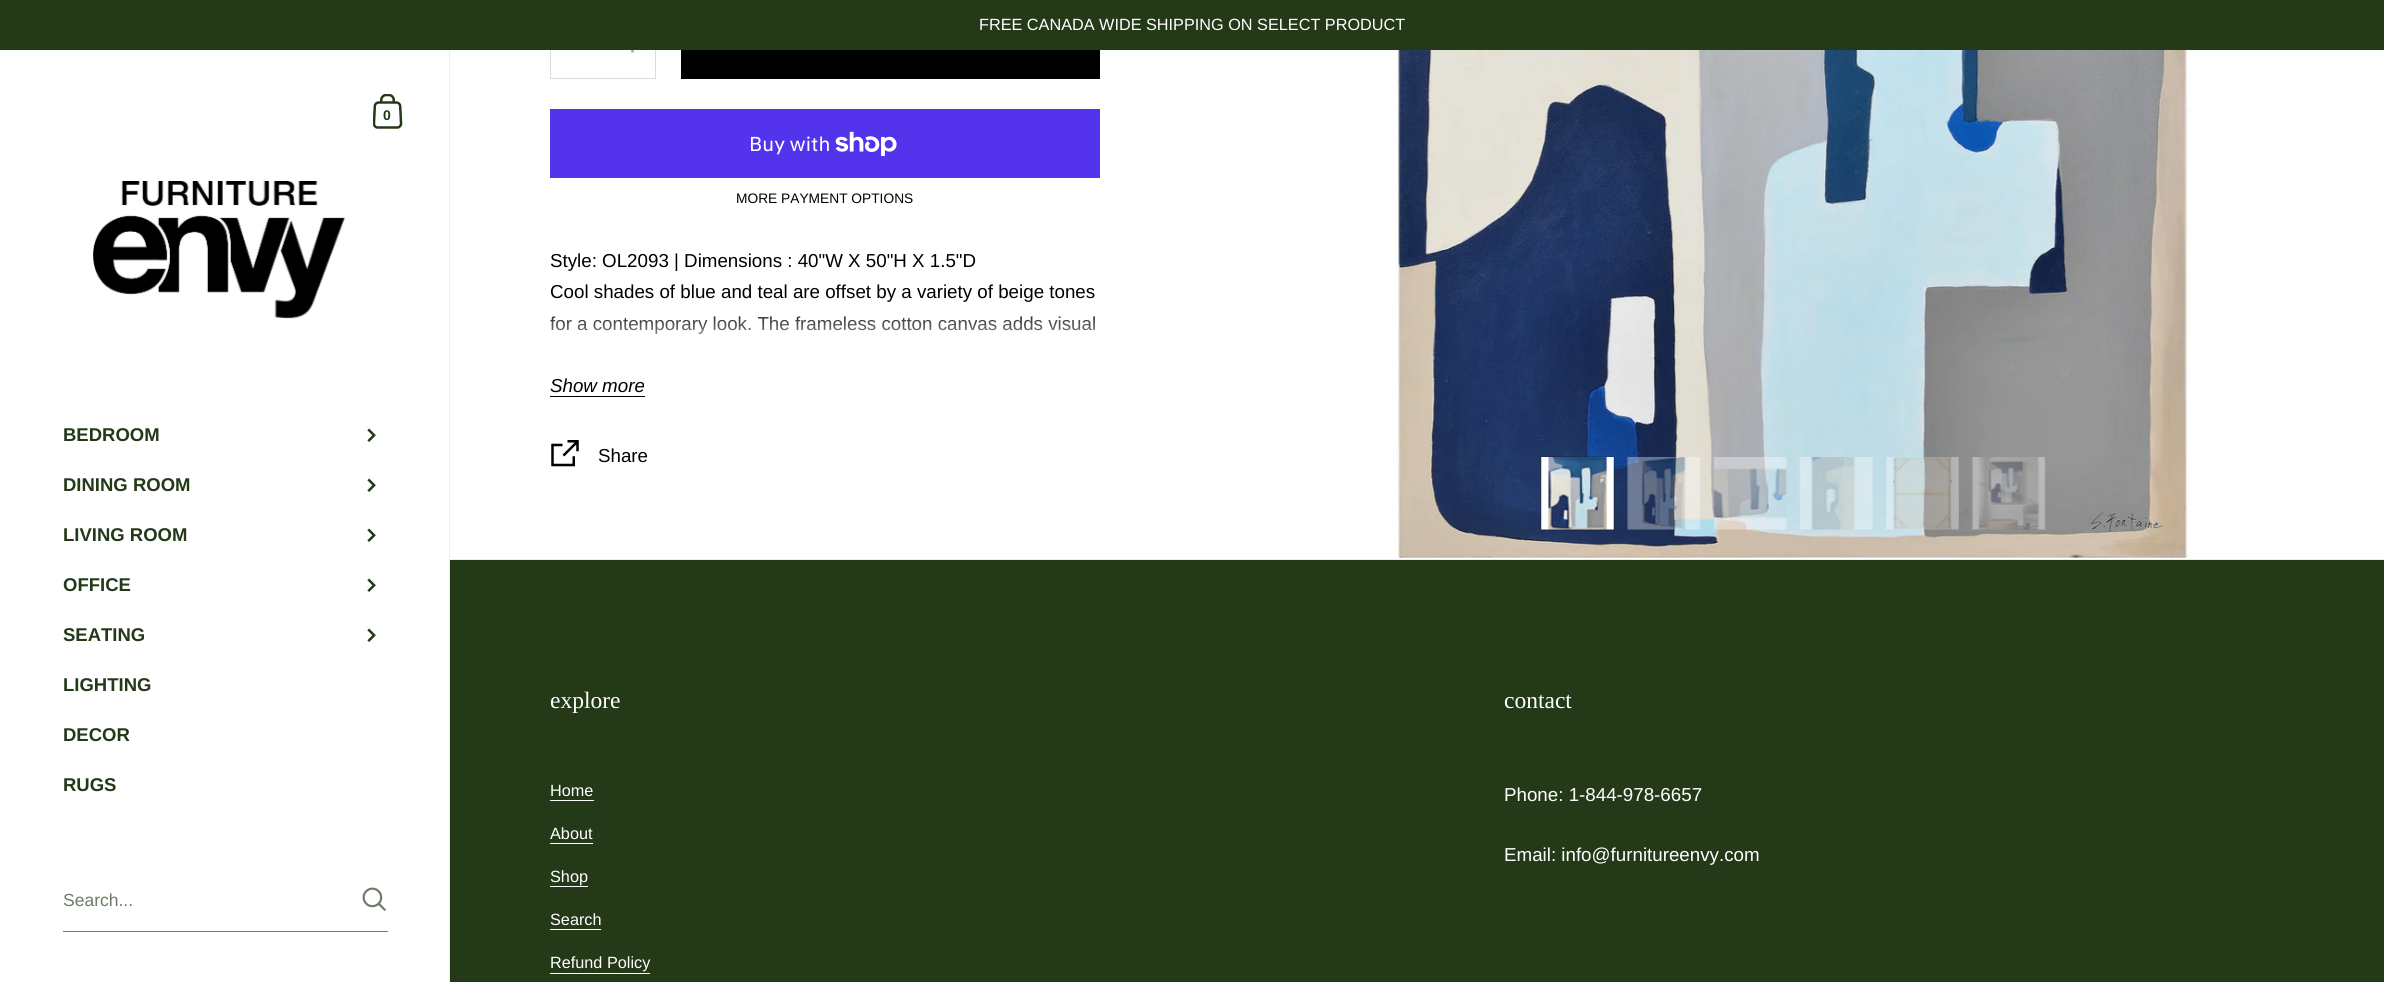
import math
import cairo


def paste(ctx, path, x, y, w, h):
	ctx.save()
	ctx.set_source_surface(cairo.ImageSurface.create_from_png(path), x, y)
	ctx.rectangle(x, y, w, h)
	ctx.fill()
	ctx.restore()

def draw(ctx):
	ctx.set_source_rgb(1, 1, 1)
	ctx.paint()
	ctx.rectangle(550.5, 10.5, 105, 68)
	ctx.set_source_rgb(0.859, 0.859, 0.859)
	ctx.set_line_width(1)
	ctx.stroke()
	ctx.set_source_rgb(0.137, 0.224, 0.094)
	ctx.rectangle(0, 0, 2384, 50)
	ctx.fill()
	ctx.select_font_face('Liberation Sans')
	ctx.set_font_size(16.25)
	ctx.set_source_rgb(1, 1, 1)
	ctx.move_to(979, 30)
	ctx.show_text('FREE CANADA WIDE SHIPPING ON SELECT PRODUCT')
	ctx.set_source_rgb(0.929, 0.937, 0.929)
	ctx.rectangle(449, 50, 1, 932)
	ctx.fill()
	paste(ctx, 'media/1.png', 373, 94, 30, 35)
	ctx.select_font_face('Liberation Sans', cairo.FONT_SLANT_NORMAL, cairo.FONT_WEIGHT_BOLD)
	ctx.set_font_size(14)
	ctx.set_source_rgb(0.137, 0.224, 0.094)
	ctx.move_to(383, 120)
	ctx.show_text('0')
	paste(ctx, 'media/2.png', 93, 181, 252, 138)
	ctx.set_font_size(18.5)
	ctx.move_to(63, 441)
	ctx.show_text('BEDROOM')
	paste(ctx, 'media/3.png', 367, 428, 9, 14)
	ctx.move_to(63, 491)
	ctx.show_text('DINING ROOM')
	paste(ctx, 'media/3.png', 367, 478, 9, 14)
	ctx.move_to(63, 541)
	ctx.show_text('LIVING ROOM')
	paste(ctx, 'media/3.png', 367, 528, 9, 14)
	ctx.move_to(63, 591)
	ctx.show_text('OFFICE')
	paste(ctx, 'media/3.png', 367, 578, 9, 14)
	ctx.move_to(63, 641)
	ctx.show_text('SEATING')
	paste(ctx, 'media/3.png', 367, 628, 9, 14)
	for x, y, s in [
		(63, 691, 'LIGHTING'),
		(63, 741, 'DECOR'),
		(63, 791, 'RUGS'),
	]:
		ctx.move_to(x, y)
		ctx.show_text(s)
	ctx.set_source_rgb(0.431, 0.486, 0.404)
	ctx.rectangle(63, 931, 325, 1)
	ctx.fill()
	ctx.select_font_face('Liberation Sans')
	ctx.set_font_size(17.5)
	ctx.move_to(63, 906)
	ctx.show_text('Search...')
	paste(ctx, 'media/4.png', 362, 887, 24, 24)
	ctx.set_source_rgb(0.922, 0.922, 0.922)
	ctx.rectangle(450, 559, 1934, 1)
	ctx.fill()
	paste(ctx, 'media/5.png', 631, 50, 3, 3)
	ctx.set_source_rgb(0, 0, 0)
	ctx.rectangle(681, 50, 419, 29)
	ctx.fill()
	ctx.set_source_rgb(0.329, 0.2, 0.922)
	ctx.rectangle(550, 109, 550, 69)
	ctx.fill()
	ctx.select_font_face('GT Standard')
	ctx.set_font_size(20)
	ctx.set_source_rgb(1, 1, 1)
	ctx.move_to(749, 151)
	ctx.show_text('Buy with')
	paste(ctx, 'media/6.png', 835, 131, 62, 25)
	ctx.select_font_face('Liberation Sans')
	ctx.set_font_size(13.75)
	ctx.set_source_rgb(0, 0, 0)
	ctx.move_to(736, 203)
	ctx.show_text('MORE PAYMENT OPTIONS')
	ctx.set_font_size(18.75)
	for x, y, s in [
		(550, 267, 'Style: OL2093 | Dimensions : 40"W X 50"H X 1.5"D'),
		(550, 298, 'Cool shades of blue and teal are offset by a variety of beige tones'),
		(550, 330, 'for a contemporary look. The frameless cotton canvas adds visual'),
	]:
		ctx.move_to(x, y)
		ctx.show_text(s)
	gradient = cairo.LinearGradient(825, 369, 825, 306)
	gradient.add_color_stop_rgba(0, 1, 1, 1, 1)
	gradient.add_color_stop_rgba(0.1, 1, 1, 1, 1)
	gradient.add_color_stop_rgba(1, 1, 1, 1, 0)
	ctx.set_source(gradient)
	ctx.rectangle(550, 316, 545, 18)
	ctx.fill()
	ctx.set_source_rgb(0, 0, 0)
	ctx.rectangle(550, 396, 95, 1)
	ctx.fill()
	ctx.select_font_face('Liberation Sans', cairo.FONT_SLANT_ITALIC)
	ctx.move_to(550, 392)
	ctx.show_text('Show more')
	paste(ctx, 'media/7.png', 551, 440, 28, 27)
	ctx.select_font_face('Liberation Sans')
	ctx.move_to(598, 462)
	ctx.show_text('Share')
	paste(ctx, 'media/8.png', 1395, 50, 795, 508)
	ctx.rectangle(1540.5, 456.5, 74, 74)
	ctx.set_source_rgba(0, 0, 0, 0.16)
	ctx.stroke()
	ctx.set_source_rgba(0, 0, 0, 0.03)
	ctx.rectangle(1541, 458, 73, 72)
	ctx.fill()
	paste(ctx, 'media/9.png', 1541, 457, 73, 73)
	paste(ctx, 'media/10.png', 1627, 457, 74, 73)
	paste(ctx, 'media/11.png', 1713, 457, 74, 73)
	paste(ctx, 'media/12.png', 1799, 457, 74, 73)
	paste(ctx, 'media/13.png', 1886, 457, 73, 73)
	paste(ctx, 'media/14.png', 1972, 457, 74, 73)
	ctx.set_source_rgb(0.137, 0.224, 0.094)
	ctx.rectangle(450, 560, 1934, 422)
	ctx.fill()
	ctx.select_font_face('Liberation Serif')
	ctx.set_font_size(23.5)
	ctx.set_source_rgb(1, 1, 1)
	ctx.move_to(550, 708)
	ctx.show_text('explore')
	ctx.select_font_face('Liberation Sans')
	ctx.set_font_size(16.25)
	ctx.move_to(550, 796)
	ctx.show_text('Home')
	ctx.rectangle(550, 800, 44, 1)
	ctx.fill()
	ctx.move_to(550, 839)
	ctx.show_text('About')
	ctx.rectangle(550, 843, 43, 1)
	ctx.fill()
	ctx.move_to(550, 882)
	ctx.show_text('Shop')
	ctx.rectangle(550, 886, 38, 1)
	ctx.fill()
	ctx.move_to(550, 925)
	ctx.show_text('Search')
	ctx.rectangle(550, 929, 51, 1)
	ctx.fill()
	ctx.move_to(550, 968)
	ctx.show_text('Refund Policy')
	ctx.rectangle(550, 973, 100, 1)
	ctx.fill()
	ctx.select_font_face('Liberation Serif')
	ctx.set_font_size(23.5)
	ctx.move_to(1504, 708)
	ctx.show_text('contact')
	ctx.select_font_face('Liberation Sans')
	ctx.set_font_size(18.75)
	ctx.move_to(1504, 801)
	ctx.show_text('Phone: 1-844-978-6657')
	ctx.move_to(1504, 861)
	ctx.show_text('Email: info@furnitureenvy.com')


surface = cairo.ImageSurface(cairo.FORMAT_RGB24, 2384, 982)
ctx = cairo.Context(surface)
options = cairo.FontOptions()
options.set_hint_metrics(cairo.HINT_METRICS_OFF)
options.set_hint_style(cairo.HINT_STYLE_NONE)
ctx.set_font_options(options)
ctx.set_miter_limit(4)
draw(ctx)
surface.write_to_png('image.png')
